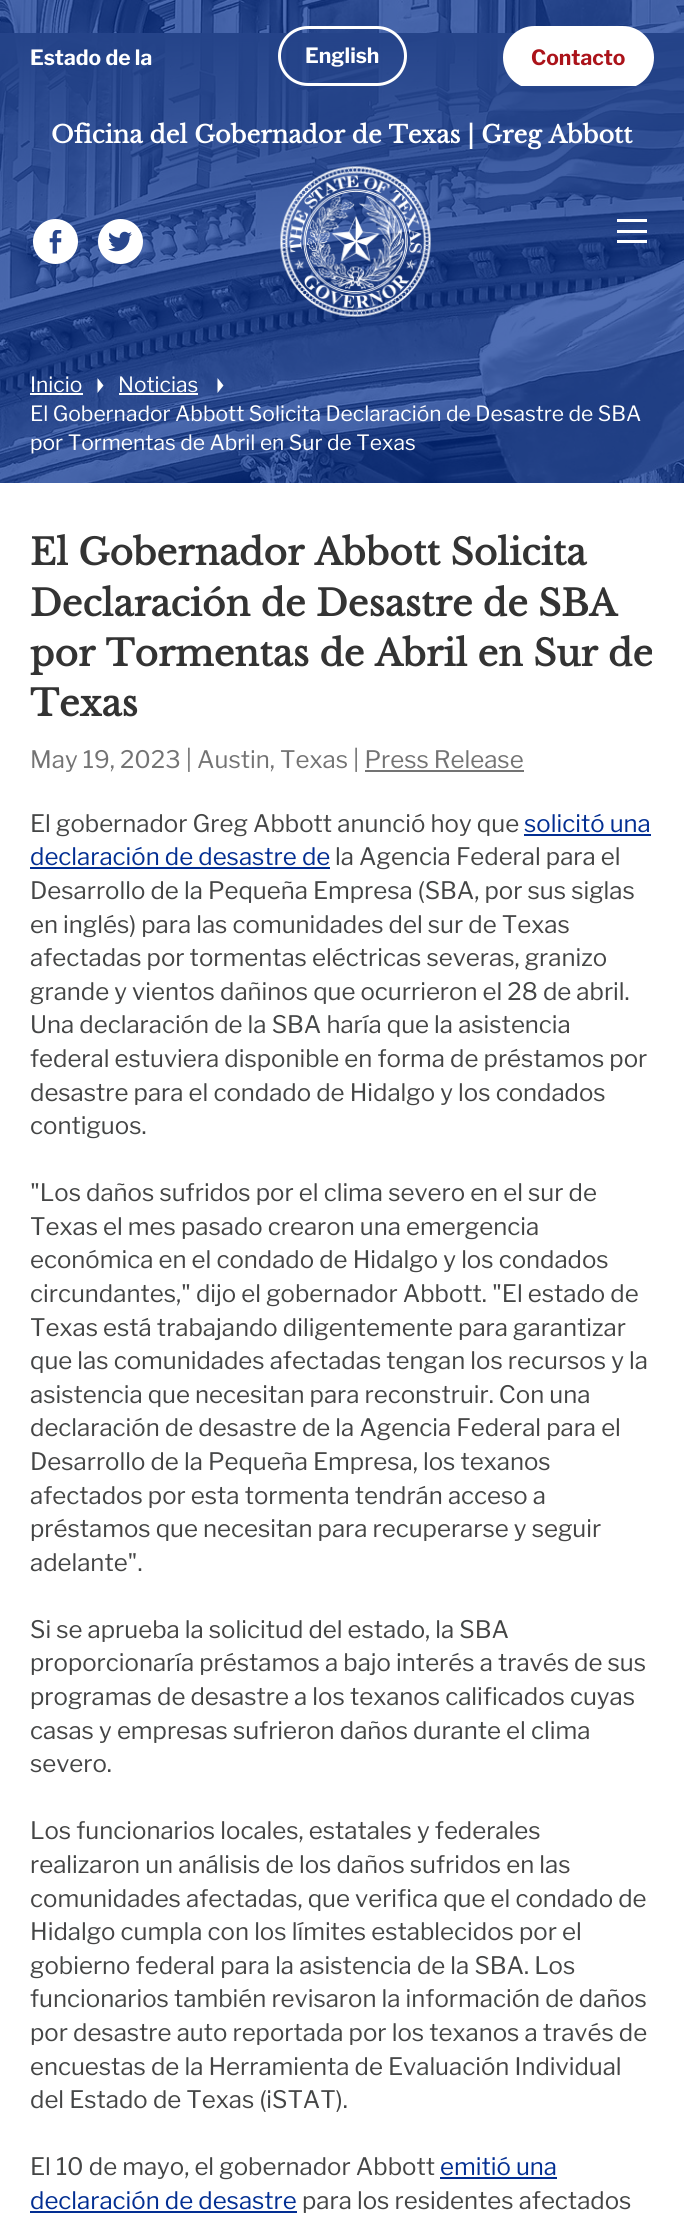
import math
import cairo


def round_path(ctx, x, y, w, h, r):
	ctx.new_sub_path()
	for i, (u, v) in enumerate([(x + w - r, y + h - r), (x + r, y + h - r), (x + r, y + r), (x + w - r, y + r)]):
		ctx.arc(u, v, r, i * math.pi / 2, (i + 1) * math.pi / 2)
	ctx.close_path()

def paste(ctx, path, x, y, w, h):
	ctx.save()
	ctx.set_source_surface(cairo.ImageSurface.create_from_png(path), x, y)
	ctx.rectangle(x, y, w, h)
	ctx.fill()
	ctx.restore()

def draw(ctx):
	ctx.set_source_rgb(1, 1, 1)
	ctx.paint()
	paste(ctx, 'media/1.png', 0, 0, 684, 483)
	ctx.select_font_face('Libre Franklin', cairo.FONT_SLANT_NORMAL, cairo.FONT_WEIGHT_BOLD)
	ctx.set_font_size(21)
	ctx.set_source_rgb(1, 1, 1)
	ctx.move_to(30, 65)
	ctx.show_text('Estado de la')
	round_path(ctx, 279.5, 27.5, 126, 57, 28.5)
	ctx.set_line_width(3)
	ctx.stroke()
	ctx.move_to(305, 63)
	ctx.show_text('English')
	ctx.save()
	ctx.rectangle(30, 26, 624, 60)
	ctx.clip()
	round_path(ctx, 505.5, 28.5, 146, 58, 29)
	ctx.fill_preserve()
	ctx.set_line_width(5)
	ctx.stroke()
	ctx.restore()
	ctx.set_source_rgb(0.671, 0.078, 0.102)
	ctx.move_to(531, 65)
	ctx.show_text('Contacto')
	ctx.select_font_face('Libre Baskerville', cairo.FONT_SLANT_NORMAL, cairo.FONT_WEIGHT_BOLD)
	ctx.set_font_size(24)
	ctx.set_source_rgb(1, 1, 1)
	ctx.move_to(51, 143)
	ctx.show_text('Oficina del Gobernador de Texas | Greg Abbott')
	ctx.new_path()
	ctx.arc(55.5, 241.5, 22.5, 0, 2 * math.pi)
	ctx.fill()
	paste(ctx, 'media/2.png', 49, 230, 13, 24)
	ctx.arc(120.5, 241.5, 22.5, 0, 2 * math.pi)
	ctx.fill()
	paste(ctx, 'media/3.png', 108, 231, 24, 21)
	paste(ctx, 'media/4.png', 280, 166, 151, 151)
	ctx.rectangle(617, 240, 30, 3)
	ctx.rectangle(617, 230, 30, 3)
	ctx.rectangle(617, 219, 30, 3)
	ctx.fill()
	ctx.select_font_face('Libre Franklin')
	ctx.set_font_size(21)
	ctx.move_to(30, 392)
	ctx.show_text('Inicio')
	ctx.rectangle(30, 393, 53, 2)
	ctx.fill()
	ctx.new_path()
	ctx.move_to(97.5, 393)
	ctx.line_to(97.5, 378)
	ctx.line_to(103.5, 385.5)
	ctx.close_path()
	ctx.fill()
	ctx.move_to(118, 392)
	ctx.show_text('Noticias')
	ctx.rectangle(119, 393, 79, 2)
	ctx.fill()
	ctx.new_path()
	ctx.move_to(217.5, 393)
	ctx.line_to(217.5, 378)
	ctx.line_to(223.5, 385.5)
	ctx.close_path()
	ctx.fill()
	ctx.move_to(30, 421)
	ctx.show_text('El Gobernador Abbott Solicita Declaración de Desastre de SBA')
	ctx.move_to(30, 450)
	ctx.show_text('por Tormentas de Abril en Sur de Texas')
	ctx.select_font_face('Libre Baskerville', cairo.FONT_SLANT_NORMAL, cairo.FONT_WEIGHT_BOLD)
	ctx.set_font_size(36)
	ctx.set_source_rgb(0.2, 0.2, 0.2)
	for x, y, s in [
		(30, 565, 'El Gobernador Abbott Solicita'),
		(30, 616, 'Declaración de Desastre de SBA'),
		(30, 666, 'por Tormentas de Abril en Sur de'),
		(30, 716, 'Texas'),
	]:
		ctx.move_to(x, y)
		ctx.show_text(s)
	ctx.select_font_face('Libre Franklin')
	ctx.set_font_size(24)
	ctx.set_source_rgb(0.451, 0.451, 0.451)
	ctx.move_to(30, 768)
	ctx.show_text('May 19, 2023 | Austin, Texas | Press Release')
	ctx.rectangle(365, 770, 159, 2)
	ctx.fill()
	ctx.set_source_rgb(0.267, 0.271, 0.271)
	ctx.move_to(30, 832)
	ctx.show_text('El gobernador Greg Abbott anunció hoy que')
	ctx.set_source_rgb(0.008, 0.18, 0.573)
	ctx.move_to(524, 832)
	ctx.show_text('solicitó una')
	ctx.rectangle(524, 834, 127, 2)
	ctx.fill()
	ctx.move_to(30, 865)
	ctx.show_text('declaración de desastre de')
	ctx.rectangle(30, 867, 300, 2)
	ctx.fill()
	ctx.set_source_rgb(0.267, 0.271, 0.271)
	for x, y, s in [
		(335, 865, 'la Agencia Federal para el'),
		(30, 899, 'Desarrollo de la Pequeña Empresa (SBA, por sus siglas'),
		(30, 933, 'en inglés) para las comunidades del sur de Texas'),
		(30, 966, 'afectadas por tormentas eléctricas severas, granizo'),
		(30, 1000, 'grande y vientos dañinos que ocurrieron el 28 de abril.'),
		(30, 1033, 'Una declaración de la SBA haría que la asistencia'),
		(30, 1067, 'federal estuviera disponible en forma de préstamos por'),
		(30, 1101, 'desastre para el condado de Hidalgo y los condados'),
		(30, 1134, 'contiguos.'),
		(30, 1201, '"Los daños sufridos por el clima severo en el sur de'),
		(30, 1235, 'Texas el mes pasado crearon una emergencia'),
		(30, 1268, 'económica en el condado de Hidalgo y los condados'),
		(30, 1302, 'circundantes," dijo el gobernador Abbott. "El estado de'),
		(30, 1336, 'Texas está trabajando diligentemente para garantizar'),
		(30, 1369, 'que las comunidades afectadas tengan los recursos y la'),
		(30, 1403, 'asistencia que necesitan para reconstruir. Con una'),
		(30, 1436, 'declaración de desastre de la Agencia Federal para el'),
		(30, 1470, 'Desarrollo de la Pequeña Empresa, los texanos'),
		(30, 1504, 'afectados por esta tormenta tendrán acceso a'),
		(30, 1537, 'préstamos que necesitan para recuperarse y seguir'),
		(30, 1571, 'adelante".'),
		(30, 1638, 'Si se aprueba la solicitud del estado, la SBA'),
		(30, 1671, 'proporcionaría préstamos a bajo interés a través de sus'),
		(30, 1705, 'programas de desastre a los texanos calificados cuyas'),
		(30, 1739, 'casas y empresas sufrieron daños durante el clima'),
		(30, 1772, 'severo.'),
		(30, 1839, 'Los funcionarios locales, estatales y federales'),
		(30, 1873, 'realizaron un análisis de los daños sufridos en las'),
		(30, 1907, 'comunidades afectadas, que verifica que el condado de'),
		(30, 1940, 'Hidalgo cumpla con los límites establecidos por el'),
		(30, 1974, 'gobierno federal para la asistencia de la SBA. Los'),
		(30, 2007, 'funcionarios también revisaron la información de daños'),
		(30, 2041, 'por desastre auto reportada por los texanos a través de'),
		(30, 2075, 'encuestas de la Herramienta de Evaluación Individual'),
		(30, 2108, 'del Estado de Texas (iSTAT).'),
		(30, 2175, 'El 10 de mayo, el gobernador Abbott'),
	]:
		ctx.move_to(x, y)
		ctx.show_text(s)
	ctx.set_source_rgb(0.008, 0.18, 0.573)
	ctx.move_to(440, 2175)
	ctx.show_text('emitió una')
	ctx.rectangle(440, 2177, 117, 2)
	ctx.fill()
	ctx.move_to(30, 2209)
	ctx.show_text('declaración de desastre')
	ctx.rectangle(30, 2211, 267, 2)
	ctx.fill()
	ctx.set_source_rgb(0.267, 0.271, 0.271)
	ctx.move_to(302, 2209)
	ctx.show_text('para los residentes afectados')


surface = cairo.ImageSurface(cairo.FORMAT_RGB24, 684, 2222)
ctx = cairo.Context(surface)
options = cairo.FontOptions()
options.set_hint_metrics(cairo.HINT_METRICS_OFF)
options.set_hint_style(cairo.HINT_STYLE_NONE)
ctx.set_font_options(options)
ctx.set_miter_limit(4)
draw(ctx)
surface.write_to_png('image.png')
